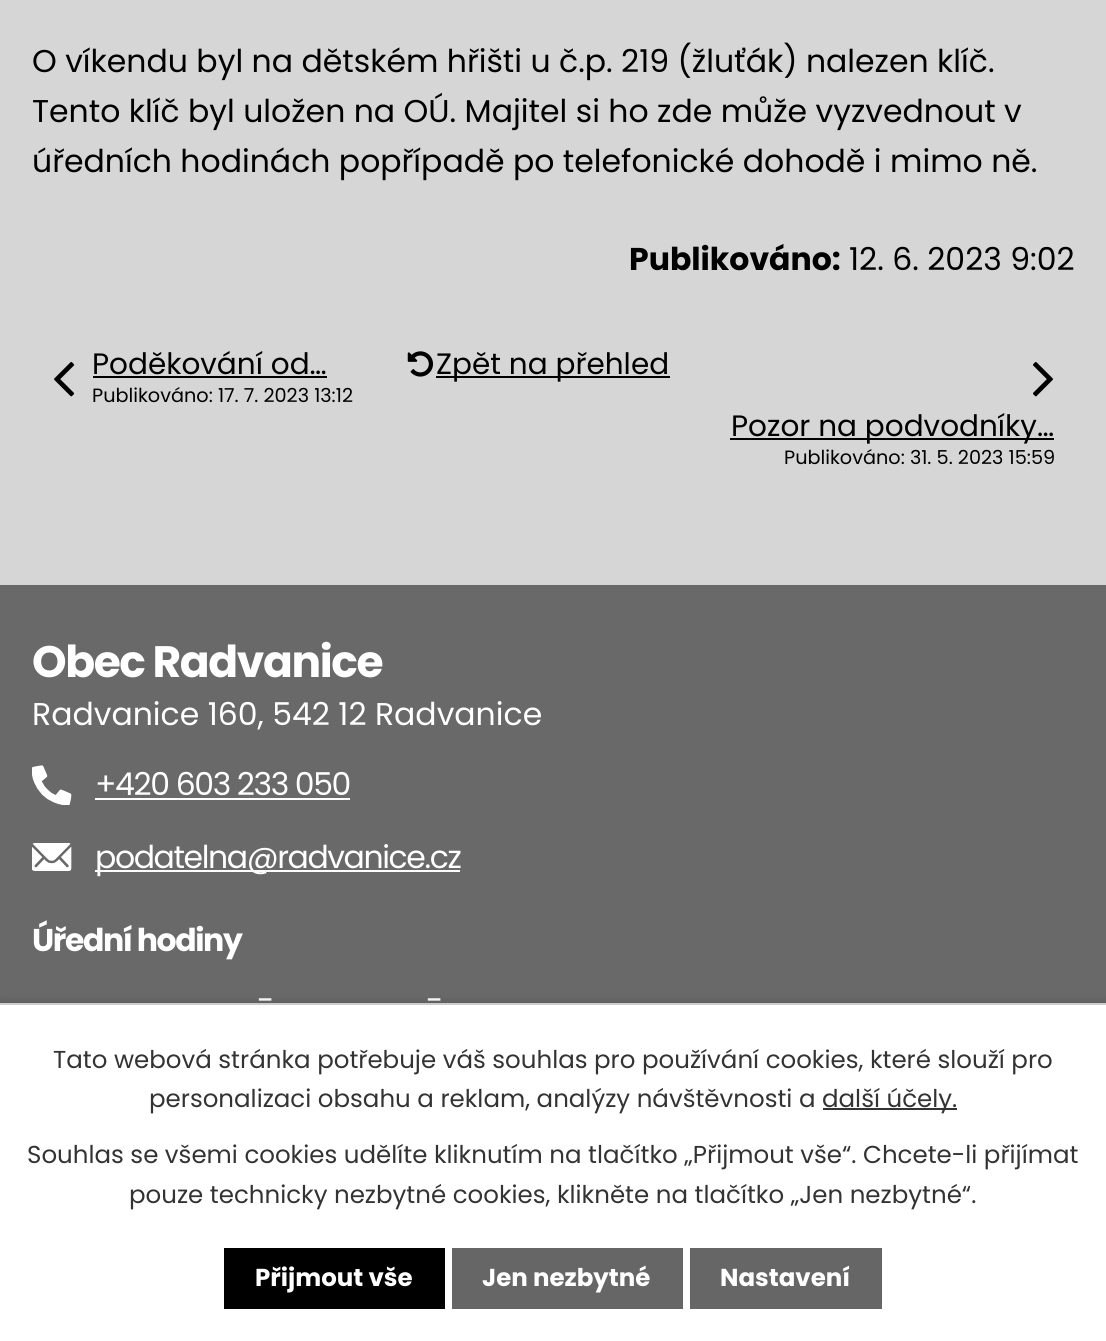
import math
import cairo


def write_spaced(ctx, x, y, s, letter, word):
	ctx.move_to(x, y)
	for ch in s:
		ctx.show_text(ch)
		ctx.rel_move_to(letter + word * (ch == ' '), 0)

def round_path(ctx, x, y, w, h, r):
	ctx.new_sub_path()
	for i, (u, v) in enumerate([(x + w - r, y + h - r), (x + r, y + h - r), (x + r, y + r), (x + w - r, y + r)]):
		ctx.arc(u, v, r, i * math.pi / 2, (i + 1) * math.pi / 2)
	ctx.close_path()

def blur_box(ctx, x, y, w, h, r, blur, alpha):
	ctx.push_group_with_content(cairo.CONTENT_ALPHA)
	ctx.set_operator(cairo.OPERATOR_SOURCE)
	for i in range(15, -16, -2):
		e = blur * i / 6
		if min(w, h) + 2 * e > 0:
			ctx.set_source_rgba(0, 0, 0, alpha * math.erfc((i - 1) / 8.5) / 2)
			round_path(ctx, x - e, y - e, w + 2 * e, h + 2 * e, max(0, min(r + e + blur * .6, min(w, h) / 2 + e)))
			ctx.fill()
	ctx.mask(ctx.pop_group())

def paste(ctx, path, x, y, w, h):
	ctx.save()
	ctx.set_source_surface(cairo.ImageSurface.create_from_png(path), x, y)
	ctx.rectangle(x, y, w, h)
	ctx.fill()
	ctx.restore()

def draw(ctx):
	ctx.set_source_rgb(0.839, 0.839, 0.839)
	ctx.paint()
	ctx.select_font_face('Poppins')
	ctx.set_font_size(31.5)
	ctx.set_source_rgb(0, 0, 0)
	for x, y, s in [
		(32, 72, 'O víkendu byl na dětském hřišti u č.p. 219 (žluťák) nalezen klíč.'),
		(32, 122, 'Tento klíč byl uložen na OÚ. Majitel si ho zde může vyzvednout v'),
		(32, 172, 'úředních hodinách popřípadě po telefonické dohodě i mimo ně.'),
	]:
		ctx.move_to(x, y)
		ctx.show_text(s)
	ctx.select_font_face('Poppins', cairo.FONT_SLANT_NORMAL, cairo.FONT_WEIGHT_BOLD)
	ctx.move_to(629, 270)
	ctx.show_text('Publikováno:')
	ctx.select_font_face('Poppins')
	ctx.move_to(849, 270)
	ctx.show_text('12. 6. 2023 9:02')
	paste(ctx, 'media/1.png', 54, 362, 21, 35)
	ctx.set_font_size(29.5)
	ctx.move_to(92, 374)
	ctx.show_text('Poděkování od…')
	ctx.rectangle(93, 376, 234, 2)
	ctx.fill()
	ctx.set_font_size(19.25)
	ctx.move_to(92, 402)
	ctx.show_text('Publikováno: 17. 7. 2023 13:12')
	paste(ctx, 'media/2.png', 407, 351, 27, 26)
	ctx.rectangle(436, 376, 234, 2)
	ctx.fill()
	ctx.set_font_size(29.5)
	ctx.move_to(436, 374)
	ctx.show_text('Zpět na přehled')
	paste(ctx, 'media/3.png', 1033, 362, 20, 35)
	ctx.rectangle(730, 438, 324, 2)
	ctx.fill()
	ctx.move_to(731, 436)
	ctx.show_text('Pozor na podvodníky…')
	ctx.set_font_size(19.25)
	ctx.move_to(784, 464)
	ctx.show_text('Publikováno: 31. 5. 2023 15:59')
	ctx.set_source_rgb(0.412, 0.412, 0.412)
	ctx.rectangle(0, 585, 1106, 418)
	ctx.fill()
	ctx.select_font_face('Poppins', cairo.FONT_SLANT_NORMAL, cairo.FONT_WEIGHT_BOLD)
	ctx.set_font_size(44)
	ctx.set_source_rgb(1, 1, 1)
	write_spaced(ctx, 32, 677, 'Obec Radvanice', -1.4, 0)
	ctx.select_font_face('Poppins')
	ctx.set_font_size(31.5)
	ctx.move_to(32, 725)
	ctx.show_text('Radvanice 160, 542 12 Radvanice')
	paste(ctx, 'media/4.png', 32, 765, 40, 40)
	write_spaced(ctx, 95, 795, '+420 603 233 050', -1.4, 0)
	ctx.rectangle(95, 798, 255, 2)
	ctx.fill()
	paste(ctx, 'media/5.png', 32, 843, 40, 28)
	ctx.rectangle(95, 870, 365, 2)
	ctx.fill()
	write_spaced(ctx, 95, 868, 'podatelna@radvanice.cz', -1.4, 0)
	ctx.select_font_face('Poppins', cairo.FONT_SLANT_NORMAL, cairo.FONT_WEIGHT_BOLD)
	write_spaced(ctx, 32, 951, 'Úřední hodiny', -1.4, 0)
	ctx.select_font_face('Poppins')
	write_spaced(ctx, 257, 1011, '-', -1.4, 0)
	write_spaced(ctx, 426, 1011, '-', -1.4, 0)
	ctx.set_source_rgb(0, 0, 0)
	blur_box(ctx, 0, 1003, 1106, 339, 0, 4.5, 0.2)
	ctx.set_source_rgb(1, 1, 1)
	ctx.rectangle(0, 1005, 1106, 336)
	ctx.fill()
	ctx.set_source_rgb(0.8, 0.8, 0.8)
	ctx.rectangle(0, 1003, 1106, 2)
	ctx.fill()
	ctx.set_font_size(24.5)
	ctx.set_source_rgb(0.2, 0.2, 0.2)
	ctx.move_to(53, 1068)
	ctx.show_text('Tato webová stránka potřebuje váš souhlas pro používání cookies, které slouží pro')
	ctx.move_to(149, 1107)
	ctx.show_text('personalizaci obsahu a reklam, analýzy návštěvnosti a')
	ctx.rectangle(823, 1108, 134, 2)
	ctx.fill()
	for x, y, s in [
		(822, 1107, 'další účely.'),
		(27, 1163, 'Souhlas se všemi cookies udělíte kliknutím na tlačítko „Přijmout vše“. Chcete-li přijímat'),
		(129, 1203, 'pouze technicky nezbytné cookies, klikněte na tlačítko „Jen nezbytné“.'),
	]:
		ctx.move_to(x, y)
		ctx.show_text(s)
	ctx.set_source_rgb(0, 0, 0)
	ctx.rectangle(224, 1248, 221, 61)
	ctx.fill()
	ctx.select_font_face('Poppins', cairo.FONT_SLANT_NORMAL, cairo.FONT_WEIGHT_BOLD)
	ctx.set_source_rgb(1, 1, 1)
	ctx.move_to(255, 1286)
	ctx.show_text('Přijmout vše')
	ctx.set_source_rgb(0.4, 0.4, 0.4)
	ctx.rectangle(452, 1248, 231, 61)
	ctx.fill()
	ctx.set_source_rgb(1, 1, 1)
	ctx.move_to(482, 1286)
	ctx.show_text('Jen nezbytné')
	ctx.set_source_rgb(0.4, 0.4, 0.4)
	ctx.rectangle(690, 1248, 192, 61)
	ctx.fill()
	ctx.set_source_rgb(1, 1, 1)
	ctx.move_to(720, 1286)
	ctx.show_text('Nastavení')


surface = cairo.ImageSurface(cairo.FORMAT_RGB24, 1106, 1341)
ctx = cairo.Context(surface)
options = cairo.FontOptions()
options.set_hint_metrics(cairo.HINT_METRICS_OFF)
options.set_hint_style(cairo.HINT_STYLE_NONE)
ctx.set_font_options(options)
ctx.set_miter_limit(4)
draw(ctx)
surface.write_to_png('image.png')
